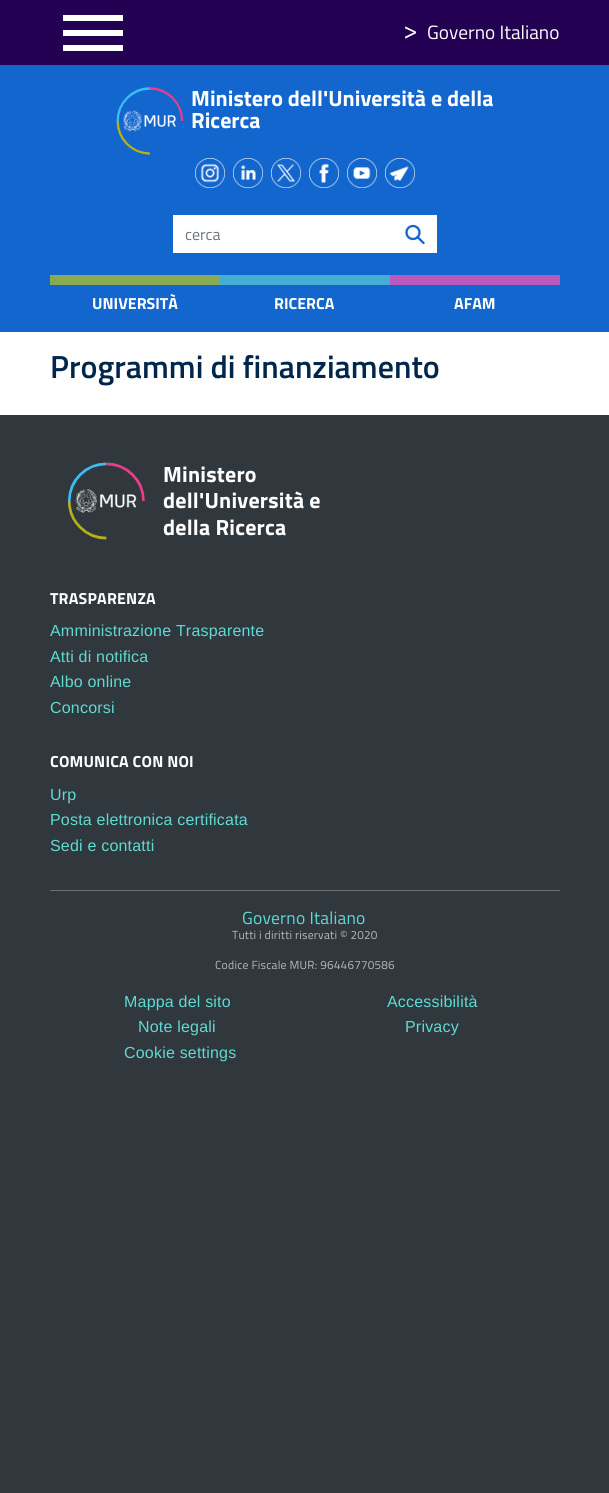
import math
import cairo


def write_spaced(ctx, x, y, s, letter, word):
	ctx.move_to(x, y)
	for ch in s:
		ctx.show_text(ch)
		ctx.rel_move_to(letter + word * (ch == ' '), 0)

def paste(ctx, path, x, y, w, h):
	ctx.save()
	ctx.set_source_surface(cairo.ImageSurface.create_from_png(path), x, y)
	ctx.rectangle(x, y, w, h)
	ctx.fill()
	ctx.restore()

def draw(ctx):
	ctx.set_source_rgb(0.188, 0.216, 0.239)
	ctx.paint()
	ctx.set_source_rgb(1, 1, 1)
	ctx.rectangle(0, 332, 609, 83)
	ctx.fill()
	ctx.set_source_rgb(0.141, 0, 0.325)
	ctx.rectangle(0, 0, 609, 65)
	ctx.fill()
	ctx.set_source_rgb(1, 1, 1)
	ctx.rectangle(63, 15, 60, 6)
	ctx.rectangle(63, 30, 60, 6)
	ctx.rectangle(63, 45, 60, 6)
	ctx.fill()
	ctx.select_font_face('Titillium Web')
	ctx.set_font_size(26)
	ctx.move_to(403, 39)
	ctx.show_text('>')
	ctx.set_font_size(19.25)
	ctx.move_to(427, 39)
	ctx.show_text('Governo Italiano')
	ctx.set_source_rgb(0.071, 0.4, 0.804)
	ctx.rectangle(0, 65, 609, 267)
	ctx.fill()
	paste(ctx, 'media/1.png', 116, 87, 68, 68)
	ctx.select_font_face('Titillium Web', cairo.FONT_SLANT_NORMAL, cairo.FONT_WEIGHT_BOLD)
	ctx.set_font_size(22)
	ctx.set_source_rgb(1, 1, 1)
	ctx.move_to(191, 106)
	ctx.show_text('Ministero dell\'Università e della')
	ctx.move_to(191, 128)
	ctx.show_text('Ricerca')
	paste(ctx, 'media/2.png', 195, 158, 30, 30)
	paste(ctx, 'media/3.png', 233, 158, 30, 30)
	paste(ctx, 'media/4.png', 271, 158, 30, 30)
	paste(ctx, 'media/5.png', 309, 158, 30, 30)
	paste(ctx, 'media/6.png', 347, 158, 30, 30)
	paste(ctx, 'media/7.png', 385, 158, 30, 30)
	ctx.rectangle(173, 215, 264, 38)
	ctx.fill()
	ctx.select_font_face('Titillium Web')
	ctx.set_font_size(16)
	ctx.set_source_rgb(0.424, 0.459, 0.49)
	ctx.move_to(185, 240)
	ctx.show_text('cerca')
	ctx.new_path()
	ctx.move_to(417.5, 237)
	ctx.line_to(423.5, 243)
	ctx.set_source_rgb(0.071, 0.4, 0.804)
	ctx.set_line_width(2.3)
	ctx.set_line_cap(cairo.LINE_CAP_ROUND)
	ctx.set_line_join(cairo.LINE_JOIN_ROUND)
	ctx.stroke()
	ctx.arc(413, 232.5, 6.5, 0, 2 * math.pi)
	ctx.set_line_cap(cairo.LINE_CAP_BUTT)
	ctx.set_line_join(cairo.LINE_JOIN_MITER)
	ctx.stroke()
	ctx.set_source_rgb(0.537, 0.671, 0.318)
	ctx.rectangle(50, 275, 170, 10)
	ctx.fill()
	ctx.select_font_face('Titillium Web', cairo.FONT_SLANT_NORMAL, cairo.FONT_WEIGHT_BOLD)
	ctx.set_source_rgb(1, 1, 1)
	ctx.move_to(92, 309)
	ctx.show_text('UNIVERSITÀ')
	ctx.set_source_rgb(0.267, 0.682, 0.835)
	ctx.rectangle(220, 275, 170, 10)
	ctx.fill()
	ctx.set_source_rgb(1, 1, 1)
	ctx.move_to(274, 309)
	ctx.show_text('RICERCA')
	ctx.set_source_rgb(0.725, 0.357, 0.737)
	ctx.rectangle(390, 275, 170, 10)
	ctx.fill()
	ctx.set_source_rgb(1, 1, 1)
	ctx.move_to(454, 309)
	ctx.show_text('AFAM')
	ctx.select_font_face('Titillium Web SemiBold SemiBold')
	ctx.set_font_size(32)
	ctx.set_source_rgb(0, 0.149, 0.298)
	ctx.move_to(50, 378)
	ctx.show_text('Programmi di finanziamento')
	paste(ctx, 'media/8.png', 67, 462, 78, 78)
	ctx.select_font_face('Titillium Web', cairo.FONT_SLANT_NORMAL, cairo.FONT_WEIGHT_BOLD)
	ctx.set_font_size(22)
	ctx.set_source_rgb(1, 1, 1)
	for x, y, s in [
		(163, 482, 'Ministero'),
		(163, 508, 'dell\'Università e'),
		(163, 535, 'della Ricerca'),
	]:
		write_spaced(ctx, x, y, s, 0.2, 0)
	ctx.set_font_size(16)
	write_spaced(ctx, 50, 604, 'TRASPARENZA', 0.2, 0)
	ctx.select_font_face('Liberation Sans')
	ctx.set_source_rgb(0.373, 0.855, 0.827)
	for x, y, s in [
		(50, 636, 'Amministrazione Trasparente'),
		(50, 662, 'Atti di notifica'),
		(50, 687, 'Albo online'),
		(50, 713, 'Concorsi'),
	]:
		write_spaced(ctx, x, y, s, 0.2, 0)
	ctx.select_font_face('Titillium Web', cairo.FONT_SLANT_NORMAL, cairo.FONT_WEIGHT_BOLD)
	ctx.set_source_rgb(1, 1, 1)
	write_spaced(ctx, 50, 767, 'COMUNICA CON NOI', 0.2, 0)
	ctx.select_font_face('Liberation Sans')
	ctx.set_source_rgb(0.373, 0.855, 0.827)
	for x, y, s in [
		(50, 800, 'Urp'),
		(50, 825, 'Posta elettronica certificata'),
		(50, 851, 'Sedi e contatti'),
	]:
		write_spaced(ctx, x, y, s, 0.2, 0)
	ctx.set_source_rgb(0.439, 0.439, 0.439)
	ctx.rectangle(50, 890, 510, 1)
	ctx.fill()
	ctx.select_font_face('Titillium Web')
	ctx.set_font_size(17.5)
	ctx.set_source_rgb(0.373, 0.855, 0.827)
	write_spaced(ctx, 242, 924, 'Governo Italiano', 0.2, 0)
	ctx.set_font_size(11.75)
	ctx.set_source_rgb(0.718, 0.725, 0.733)
	write_spaced(ctx, 232, 939, 'Tutti i diritti riservati © 2020', 0.2, 0)
	write_spaced(ctx, 215, 969, 'Codice Fiscale MUR: 96446770586', 0.2, 0)
	ctx.select_font_face('Liberation Sans')
	ctx.set_font_size(16)
	ctx.set_source_rgb(0.373, 0.855, 0.827)
	for x, y, s in [
		(124, 1007, 'Mappa del sito'),
		(387, 1007, 'Accessibilità'),
		(138, 1032, 'Note legali'),
		(405, 1032, 'Privacy'),
		(124, 1058, 'Cookie settings'),
	]:
		write_spaced(ctx, x, y, s, 0.2, 0)


surface = cairo.ImageSurface(cairo.FORMAT_RGB24, 609, 1493)
ctx = cairo.Context(surface)
options = cairo.FontOptions()
options.set_hint_metrics(cairo.HINT_METRICS_OFF)
options.set_hint_style(cairo.HINT_STYLE_NONE)
ctx.set_font_options(options)
ctx.set_miter_limit(4)
draw(ctx)
surface.write_to_png('image.png')
